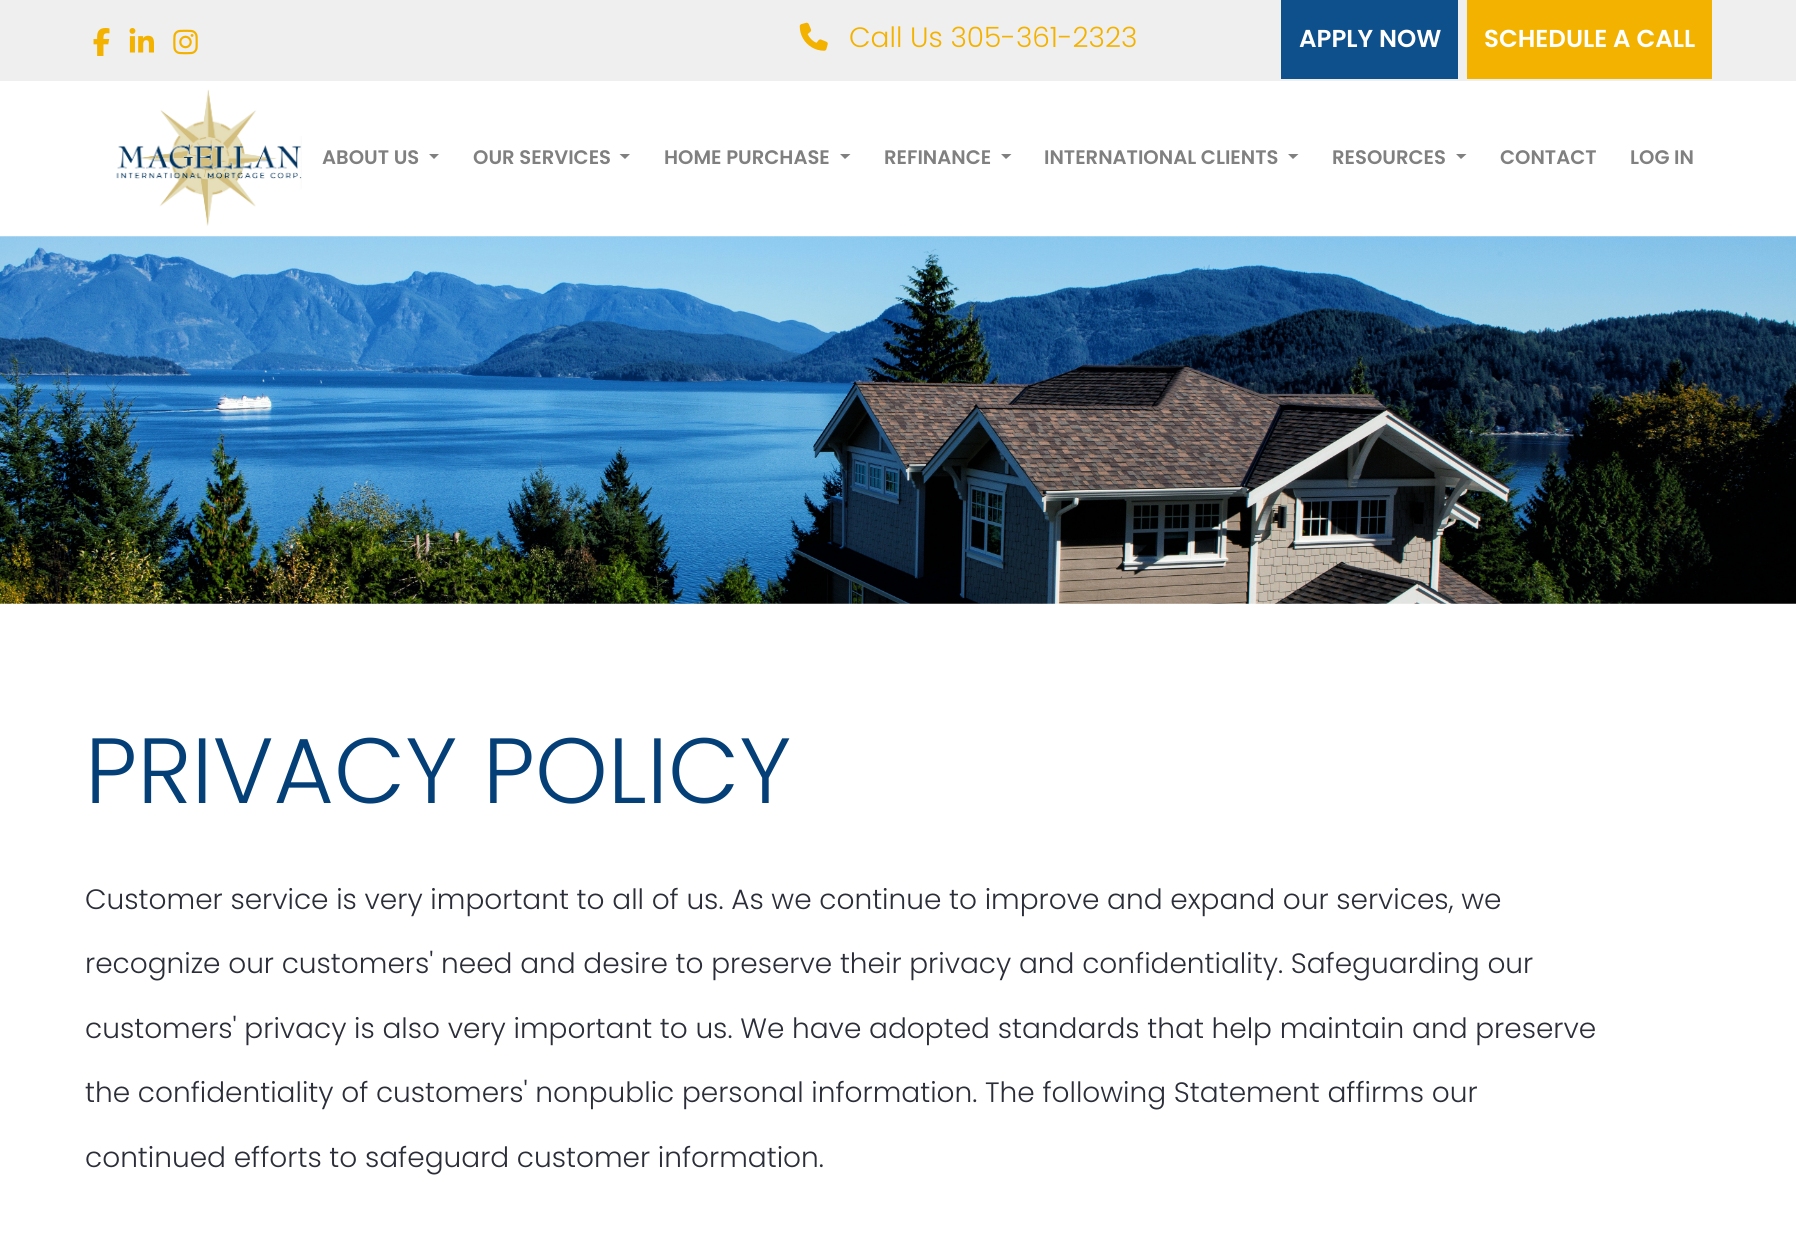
import math
import cairo


def paste(ctx, path, x, y, w, h):
	ctx.save()
	ctx.set_source_surface(cairo.ImageSurface.create_from_png(path), x, y)
	ctx.rectangle(x, y, w, h)
	ctx.fill()
	ctx.restore()

def draw(ctx):
	ctx.set_source_rgb(1, 1, 1)
	ctx.paint()
	ctx.set_source_rgb(0.937, 0.937, 0.937)
	ctx.rectangle(0, 0, 1796, 81)
	ctx.fill()
	paste(ctx, 'media/1.png', 93, 28, 17, 28)
	paste(ctx, 'media/2.png', 129, 28, 25, 25)
	paste(ctx, 'media/3.png', 173, 29, 25, 26)
	paste(ctx, 'media/4.png', 799, 22, 29, 29)
	ctx.select_font_face('Poppins Light')
	ctx.set_font_size(28)
	ctx.set_source_rgb(0.957, 0.698, 0)
	ctx.move_to(849, 47)
	ctx.show_text('Call Us 305-361-2323')
	ctx.set_source_rgb(0.055, 0.314, 0.545)
	ctx.rectangle(1281, 0, 177, 79)
	ctx.fill()
	ctx.select_font_face('Poppins SemiBold')
	ctx.set_font_size(24.5)
	ctx.set_source_rgb(1, 1, 1)
	ctx.move_to(1299, 47)
	ctx.show_text('APPLY NOW')
	ctx.set_source_rgb(0.957, 0.698, 0)
	ctx.rectangle(1467, 0, 245, 79)
	ctx.fill()
	ctx.set_source_rgb(1, 1, 1)
	ctx.move_to(1484, 47)
	ctx.show_text('SCHEDULE A CALL')
	paste(ctx, 'media/5.png', 116, 89, 186, 137)
	ctx.set_font_size(19.6)
	ctx.set_source_rgb(0.502, 0.502, 0.502)
	ctx.move_to(322, 164)
	ctx.show_text('ABOUT US')
	ctx.new_path()
	ctx.move_to(429, 154)
	ctx.line_to(439, 154)
	ctx.line_to(434, 159)
	ctx.close_path()
	ctx.fill()
	ctx.move_to(473, 164)
	ctx.show_text('OUR SERVICES')
	ctx.new_path()
	ctx.move_to(619.5, 154)
	ctx.line_to(630, 154)
	ctx.line_to(625, 159)
	ctx.close_path()
	ctx.fill()
	ctx.move_to(664, 164)
	ctx.show_text('HOME PURCHASE')
	ctx.new_path()
	ctx.move_to(840, 154)
	ctx.line_to(850.5, 154)
	ctx.line_to(845, 159)
	ctx.close_path()
	ctx.fill()
	ctx.move_to(884, 164)
	ctx.show_text('REFINANCE')
	ctx.new_path()
	ctx.move_to(1001, 154)
	ctx.line_to(1011.5, 154)
	ctx.line_to(1006, 159)
	ctx.close_path()
	ctx.fill()
	ctx.move_to(1044, 164)
	ctx.show_text('INTERNATIONAL CLIENTS')
	ctx.new_path()
	ctx.move_to(1288, 154)
	ctx.line_to(1298.5, 154)
	ctx.line_to(1293, 159)
	ctx.close_path()
	ctx.fill()
	ctx.move_to(1332, 164)
	ctx.show_text('RESOURCES')
	ctx.new_path()
	ctx.move_to(1456, 154)
	ctx.line_to(1466.5, 154)
	ctx.line_to(1461, 159)
	ctx.close_path()
	ctx.fill()
	ctx.move_to(1500, 164)
	ctx.show_text('CONTACT')
	ctx.move_to(1630, 164)
	ctx.show_text('LOG IN')
	paste(ctx, 'media/6.png', 0, 236, 1796, 368)
	ctx.select_font_face('Poppins Light')
	ctx.set_font_size(92.5)
	ctx.set_source_rgb(0.016, 0.251, 0.467)
	ctx.move_to(85, 803)
	ctx.show_text('PRIVACY POLICY')
	ctx.set_font_size(28)
	ctx.set_source_rgb(0.169, 0.18, 0.22)
	for x, y, s in [
		(85, 909, 'Customer service is very important to all of us. As we continue to improve and expand our services, we'),
		(85, 973, 'recognize our customers\' need and desire to preserve their privacy and confidentiality. Safeguarding our'),
		(85, 1038, 'customers\' privacy is also very important to us. We have adopted standards that help maintain and preserve'),
		(85, 1102, 'the confidentiality of customers\' nonpublic personal information. The following Statement affirms our'),
		(85, 1167, 'continued efforts to safeguard customer information.'),
	]:
		ctx.move_to(x, y)
		ctx.show_text(s)


surface = cairo.ImageSurface(cairo.FORMAT_RGB24, 1796, 1246)
ctx = cairo.Context(surface)
options = cairo.FontOptions()
options.set_hint_metrics(cairo.HINT_METRICS_OFF)
options.set_hint_style(cairo.HINT_STYLE_NONE)
ctx.set_font_options(options)
ctx.set_miter_limit(4)
draw(ctx)
surface.write_to_png('image.png')
